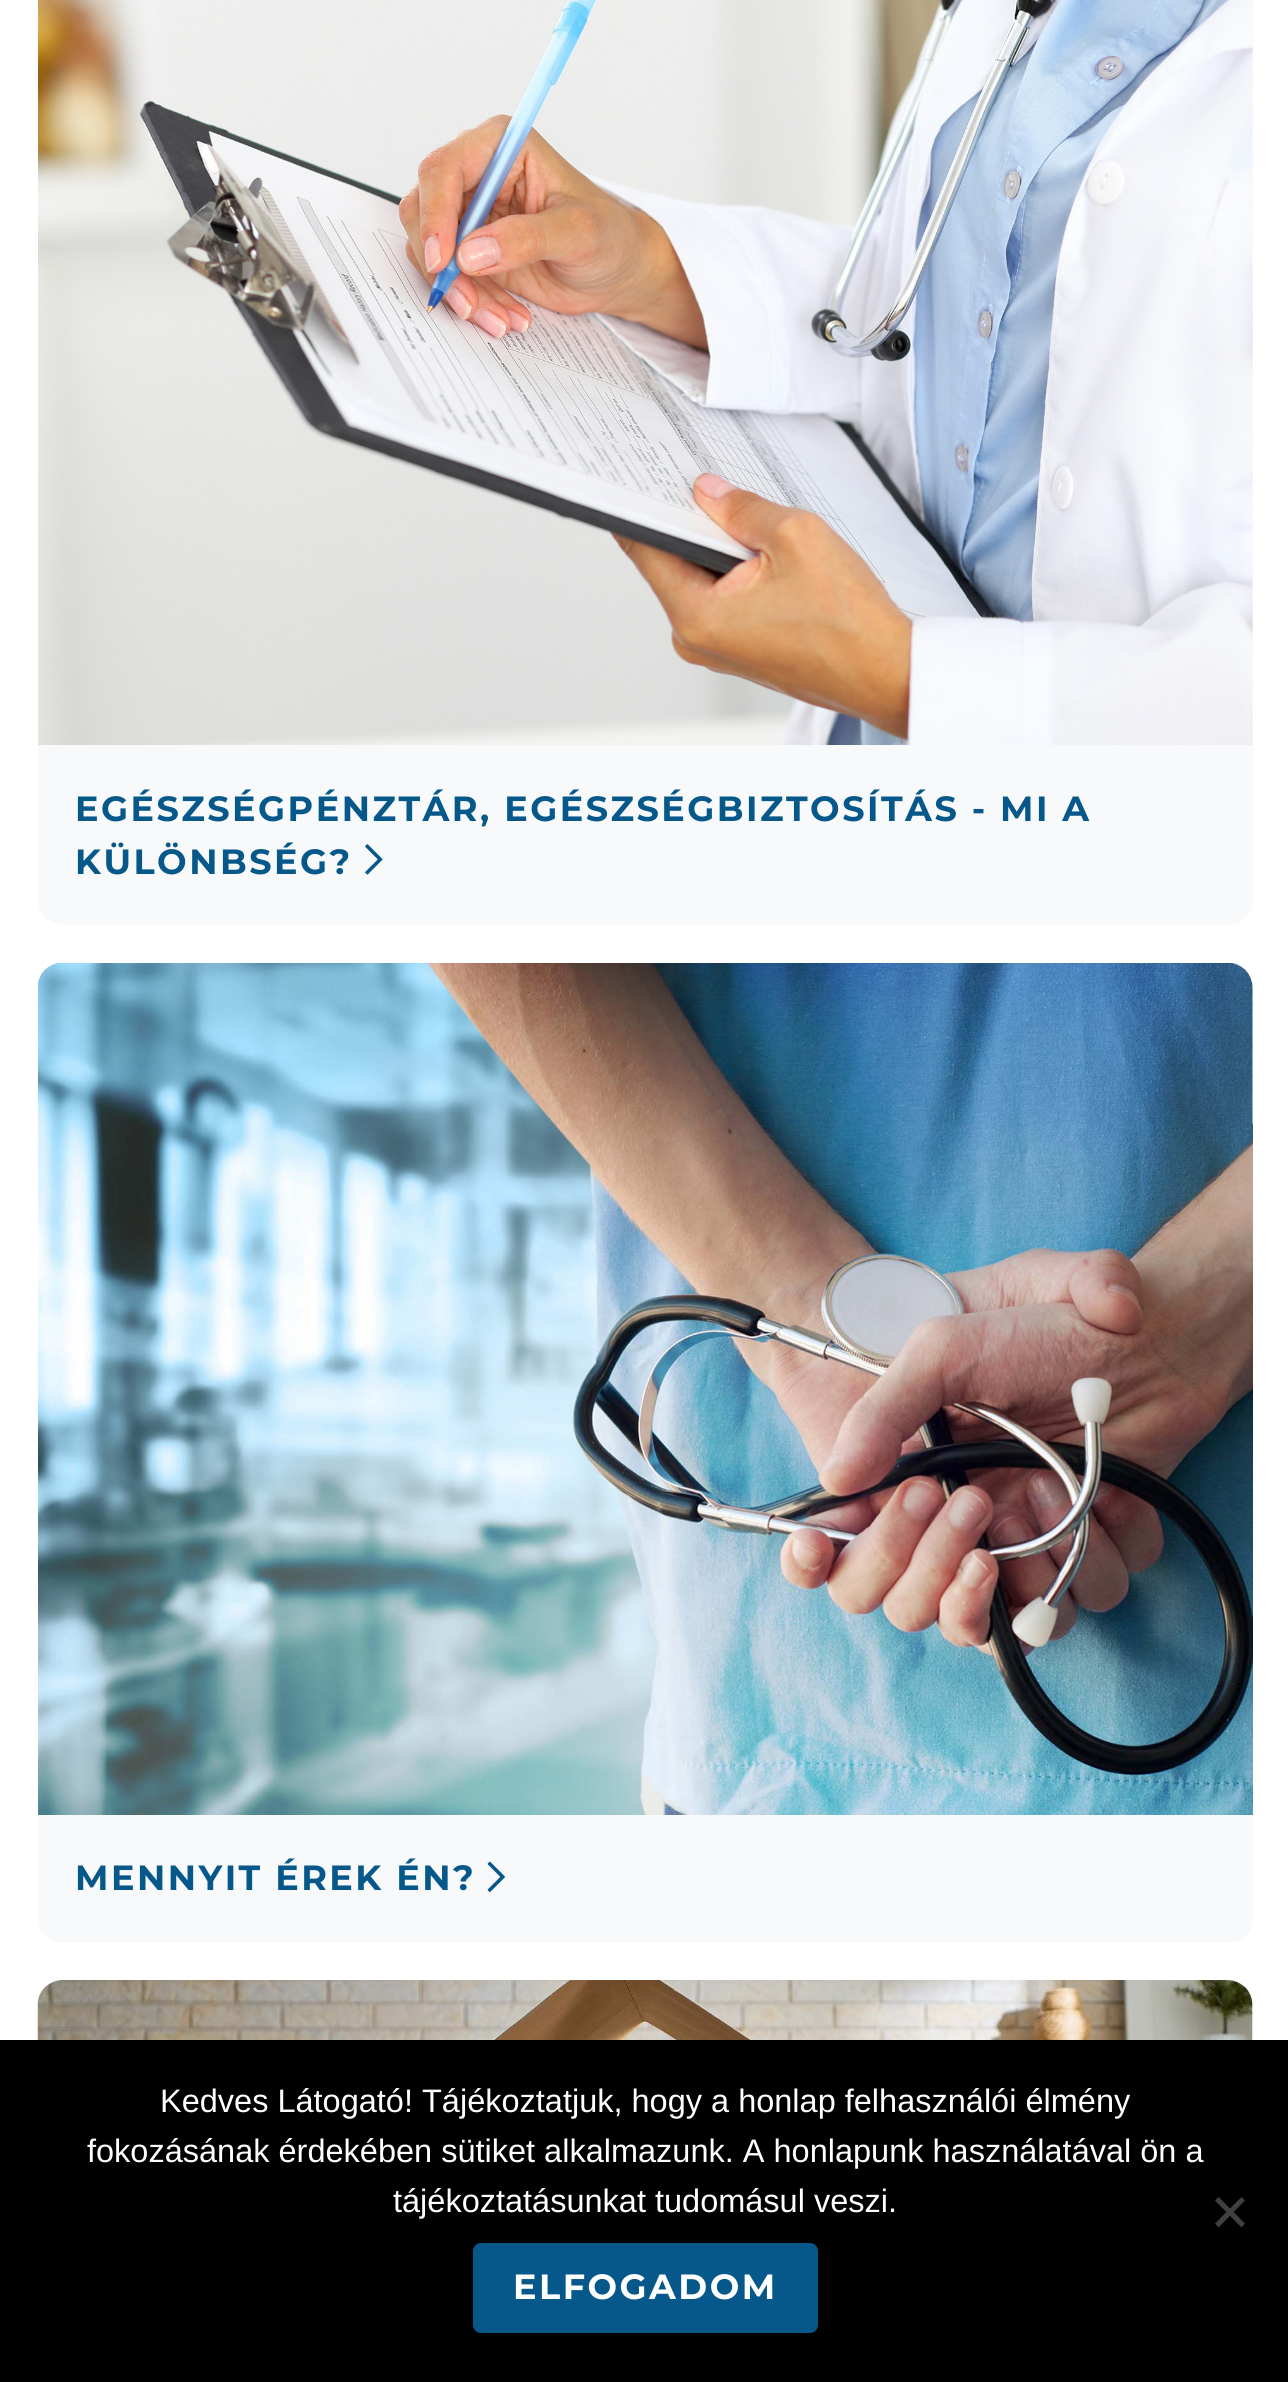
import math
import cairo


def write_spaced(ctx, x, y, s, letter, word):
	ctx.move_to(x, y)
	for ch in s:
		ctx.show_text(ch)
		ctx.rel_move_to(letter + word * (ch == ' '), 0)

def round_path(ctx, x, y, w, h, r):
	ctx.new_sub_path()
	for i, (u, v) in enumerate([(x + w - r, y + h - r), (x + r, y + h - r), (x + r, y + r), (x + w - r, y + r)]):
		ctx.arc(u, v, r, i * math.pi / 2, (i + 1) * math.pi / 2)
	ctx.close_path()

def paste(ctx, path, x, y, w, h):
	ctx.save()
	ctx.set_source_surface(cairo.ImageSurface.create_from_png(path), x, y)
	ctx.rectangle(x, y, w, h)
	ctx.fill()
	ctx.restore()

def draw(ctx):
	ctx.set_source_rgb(1, 1, 1)
	ctx.paint()
	ctx.set_source_rgb(0.965, 0.976, 0.98)
	round_path(ctx, 38, -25, 1215, 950, 25)
	ctx.fill()
	paste(ctx, 'media/1.png', 38, 0, 1215, 745)
	ctx.select_font_face('Montserrat', cairo.FONT_SLANT_NORMAL, cairo.FONT_WEIGHT_BOLD)
	ctx.set_font_size(35)
	ctx.set_source_rgb(0.027, 0.345, 0.541)
	write_spaced(ctx, 75, 821, 'EGÉSZSÉGPÉNZTÁR, EGÉSZSÉGBIZTOSÍTÁS - MI A', 2.5, 0)
	write_spaced(ctx, 75, 874, 'KÜLÖNBSÉG?', 2.5, 0)
	paste(ctx, 'media/2.png', 365, 844, 18, 31)
	ctx.set_source_rgb(0.965, 0.976, 0.98)
	round_path(ctx, 38, 963, 1215, 980, 25)
	ctx.fill()
	paste(ctx, 'media/3.png', 38, 963, 1215, 852)
	ctx.set_source_rgb(0.027, 0.345, 0.541)
	write_spaced(ctx, 75, 1890, 'MENNYIT ÉREK ÉN?', 2.5, 0)
	paste(ctx, 'media/4.png', 487, 1861, 18, 31)
	ctx.set_source_rgb(0.965, 0.976, 0.98)
	round_path(ctx, 38, 1980, 1215, 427, 25)
	ctx.fill()
	paste(ctx, 'media/5.png', 37, 1980, 1216, 60)
	ctx.set_source_rgb(0, 0, 0)
	ctx.rectangle(0, 2040, 1288, 342)
	ctx.fill()
	ctx.select_font_face('Liberation Sans')
	ctx.set_font_size(32.5)
	ctx.set_source_rgb(1, 1, 1)
	for x, y, s in [
		(160, 2112, 'Kedves Látogató! Tájékoztatjuk, hogy a honlap felhasználói élmény'),
		(87, 2162, 'fokozásának érdekében sütiket alkalmazunk. A honlapunk használatával ön a'),
		(393, 2212, 'tájékoztatásunkat tudomásul veszi.'),
	]:
		ctx.move_to(x, y)
		ctx.show_text(s)
	ctx.set_source_rgb(0.251, 0.251, 0.251)
	ctx.new_path()
	ctx.move_to(1241.5, 2197)
	ctx.line_to(1245, 2200.5)
	ctx.line_to(1218.5, 2227.5)
	ctx.line_to(1215, 2223.5)
	ctx.close_path()
	ctx.fill()
	ctx.new_path()
	ctx.move_to(1215, 2200.5)
	ctx.line_to(1218.5, 2197)
	ctx.line_to(1245, 2223.5)
	ctx.line_to(1241.5, 2227.5)
	ctx.close_path()
	ctx.fill()
	ctx.set_source_rgb(0.027, 0.345, 0.541)
	round_path(ctx, 474.5, 2244.5, 342, 87, 6.5)
	ctx.fill_preserve()
	ctx.set_line_width(3)
	ctx.stroke()
	ctx.select_font_face('Montserrat', cairo.FONT_SLANT_NORMAL, cairo.FONT_WEIGHT_BOLD)
	ctx.set_font_size(35)
	ctx.set_source_rgb(1, 1, 1)
	write_spaced(ctx, 513, 2299, 'ELFOGADOM', 2.5, 0)


surface = cairo.ImageSurface(cairo.FORMAT_RGB24, 1288, 2382)
ctx = cairo.Context(surface)
options = cairo.FontOptions()
options.set_hint_metrics(cairo.HINT_METRICS_OFF)
options.set_hint_style(cairo.HINT_STYLE_NONE)
ctx.set_font_options(options)
ctx.set_miter_limit(4)
draw(ctx)
surface.write_to_png('image.png')
